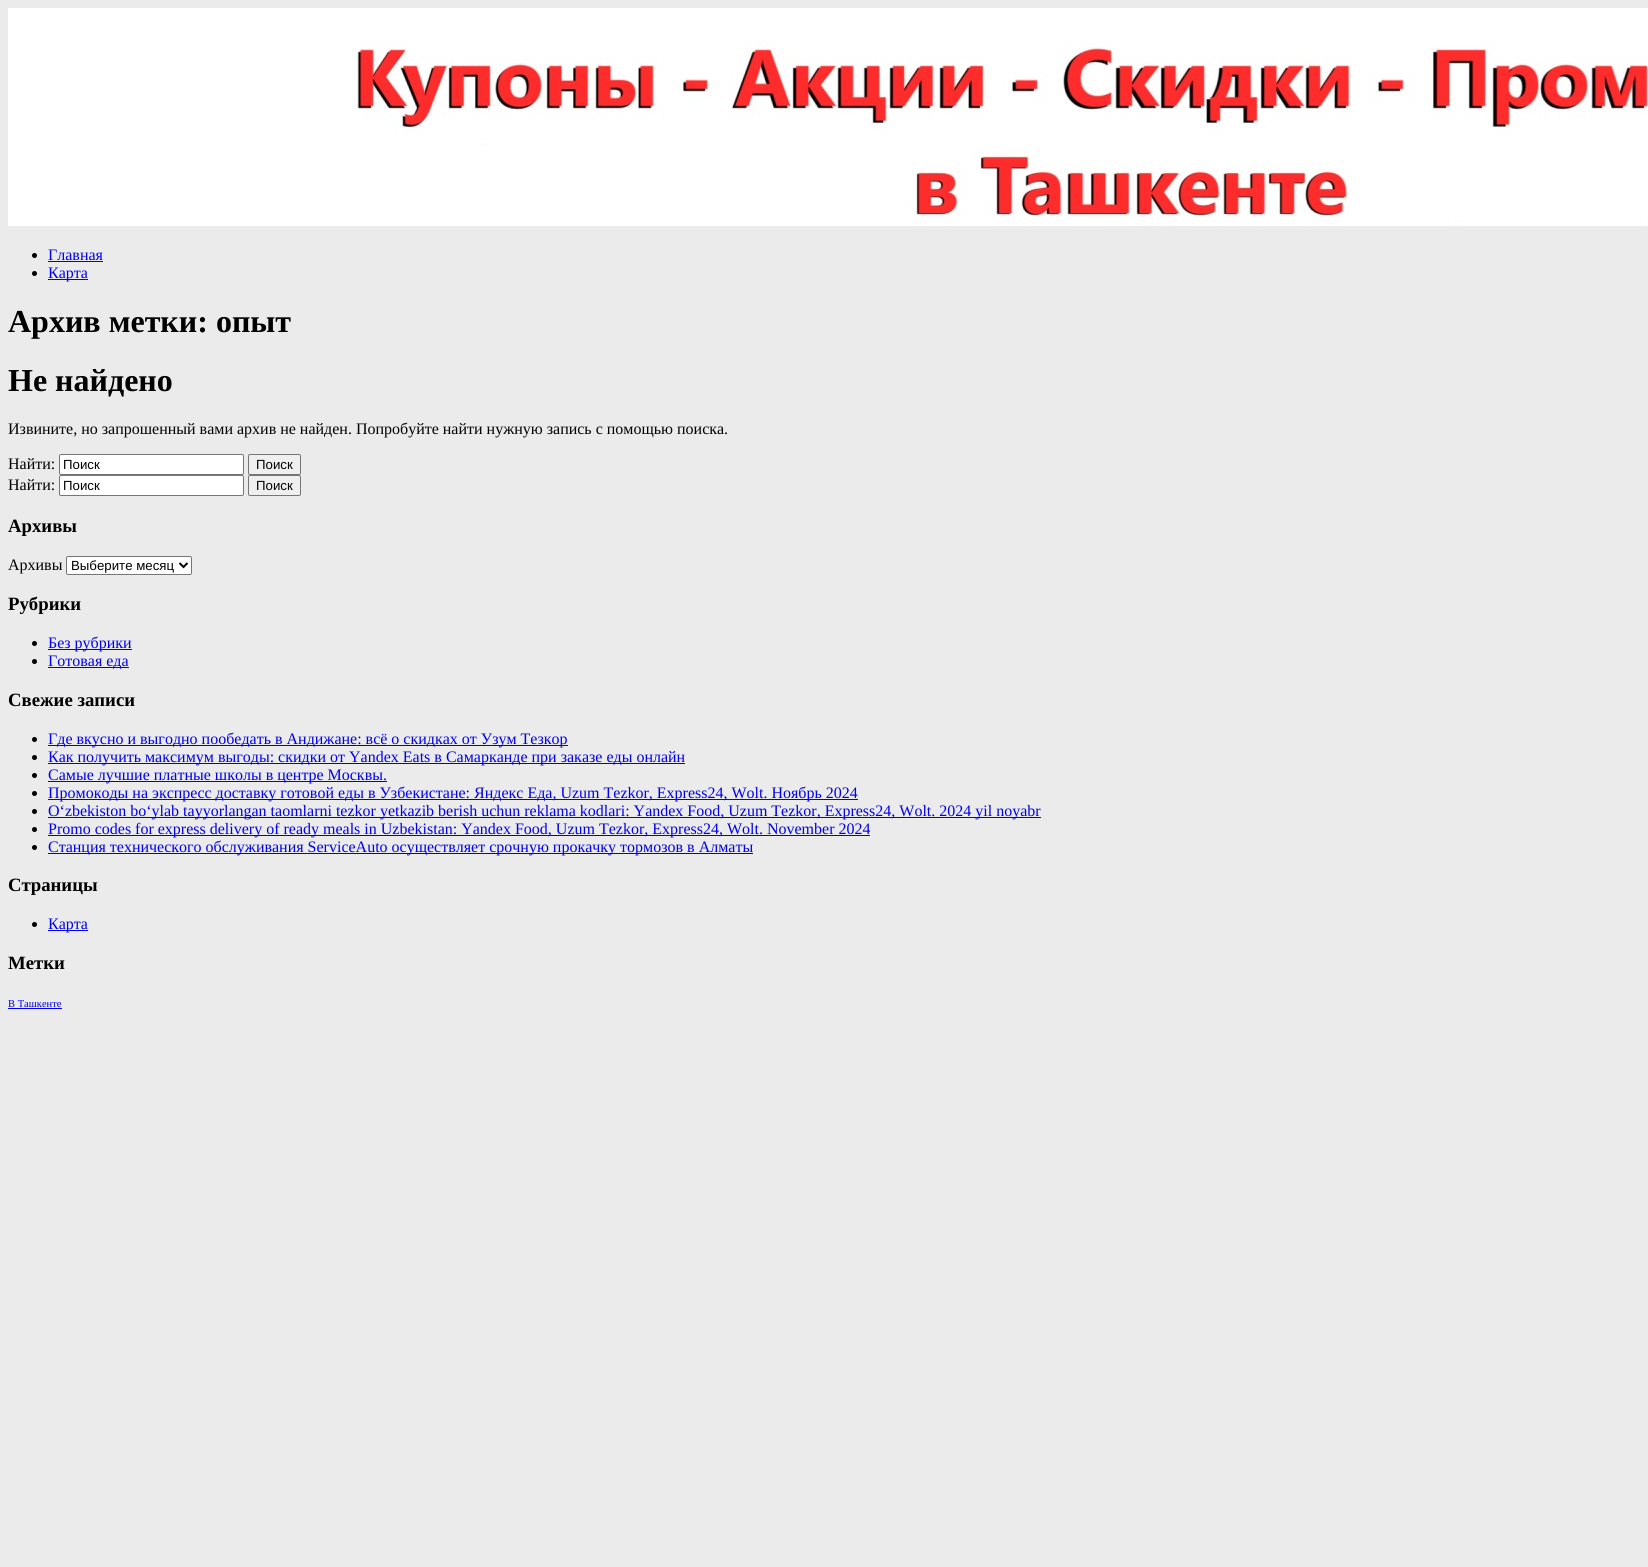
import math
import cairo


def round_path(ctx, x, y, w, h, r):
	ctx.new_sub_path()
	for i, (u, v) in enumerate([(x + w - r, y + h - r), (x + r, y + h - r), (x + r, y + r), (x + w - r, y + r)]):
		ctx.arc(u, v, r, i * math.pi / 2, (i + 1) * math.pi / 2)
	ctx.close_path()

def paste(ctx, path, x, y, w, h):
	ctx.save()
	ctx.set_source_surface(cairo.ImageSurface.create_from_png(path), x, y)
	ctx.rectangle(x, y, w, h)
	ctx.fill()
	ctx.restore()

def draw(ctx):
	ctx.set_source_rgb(0.918, 0.918, 0.918)
	ctx.paint()
	paste(ctx, 'media/1.png', 8, 8, 1640, 218)
	ctx.set_source_rgb(0, 0, 0)
	ctx.arc(34.5, 255.5, 2.5, 0, 2 * math.pi)
	ctx.fill()
	ctx.select_font_face('Liberation Serif')
	ctx.set_font_size(16)
	ctx.set_source_rgb(0, 0, 0.933)
	ctx.move_to(48, 260)
	ctx.show_text('Главная')
	ctx.rectangle(48, 261, 55, 1)
	ctx.fill()
	ctx.set_source_rgb(0, 0, 0)
	ctx.arc(34.5, 273.5, 2.5, 0, 2 * math.pi)
	ctx.fill()
	ctx.set_source_rgb(0, 0, 0.933)
	ctx.rectangle(48, 279, 40, 1)
	ctx.fill()
	ctx.move_to(48, 278)
	ctx.show_text('Карта')
	ctx.select_font_face('Liberation Serif', cairo.FONT_SLANT_NORMAL, cairo.FONT_WEIGHT_BOLD)
	ctx.set_font_size(32)
	ctx.set_source_rgb(0, 0, 0)
	ctx.move_to(8, 332)
	ctx.show_text('Архив метки: опыт')
	ctx.move_to(8, 391)
	ctx.show_text('Не найдено')
	ctx.select_font_face('Liberation Serif')
	ctx.set_font_size(16)
	ctx.move_to(8, 434)
	ctx.show_text('Извините, но запрошенный вами архив не найден. Попробуйте найти нужную запись с помощью поиска.')
	ctx.move_to(8, 469)
	ctx.show_text('Найти:')
	ctx.set_source_rgb(1, 1, 1)
	round_path(ctx, 59.5, 454.5, 184, 20, 1.5)
	ctx.fill_preserve()
	ctx.set_source_rgb(0.463, 0.463, 0.463)
	ctx.set_line_width(1)
	ctx.stroke()
	ctx.select_font_face('Liberation Sans')
	ctx.set_font_size(13.25)
	ctx.set_source_rgb(0, 0, 0)
	ctx.move_to(63, 469)
	ctx.show_text('Поиск')
	ctx.set_source_rgb(0.937, 0.937, 0.937)
	round_path(ctx, 248.5, 454.5, 52, 20, 1.5)
	ctx.fill_preserve()
	ctx.set_source_rgb(0.463, 0.463, 0.463)
	ctx.stroke()
	ctx.set_source_rgb(0, 0, 0)
	ctx.move_to(256, 469)
	ctx.show_text('Поиск')
	ctx.select_font_face('Liberation Serif')
	ctx.set_font_size(16)
	ctx.move_to(8, 490)
	ctx.show_text('Найти:')
	ctx.set_source_rgb(1, 1, 1)
	round_path(ctx, 59.5, 475.5, 184, 20, 1.5)
	ctx.fill_preserve()
	ctx.set_source_rgb(0.463, 0.463, 0.463)
	ctx.stroke()
	ctx.select_font_face('Liberation Sans')
	ctx.set_font_size(13.25)
	ctx.set_source_rgb(0, 0, 0)
	ctx.move_to(63, 490)
	ctx.show_text('Поиск')
	ctx.set_source_rgb(0.937, 0.937, 0.937)
	round_path(ctx, 248.5, 475.5, 52, 20, 1.5)
	ctx.fill_preserve()
	ctx.set_source_rgb(0.463, 0.463, 0.463)
	ctx.stroke()
	ctx.set_source_rgb(0, 0, 0)
	ctx.move_to(256, 490)
	ctx.show_text('Поиск')
	ctx.select_font_face('Liberation Serif', cairo.FONT_SLANT_NORMAL, cairo.FONT_WEIGHT_BOLD)
	ctx.set_font_size(18.75)
	ctx.move_to(8, 532)
	ctx.show_text('Архивы')
	ctx.select_font_face('Liberation Serif')
	ctx.set_font_size(16)
	ctx.move_to(8, 570)
	ctx.show_text('Архивы')
	ctx.set_source_rgb(1, 1, 1)
	round_path(ctx, 66.5, 556.5, 125, 18, 1.5)
	ctx.fill_preserve()
	ctx.set_source_rgb(0.463, 0.463, 0.463)
	ctx.stroke()
	ctx.new_path()
	ctx.move_to(179.5, 563)
	ctx.line_to(183.5, 567)
	ctx.line_to(187.5, 563)
	ctx.set_source_rgb(0, 0, 0)
	ctx.set_line_width(2)
	ctx.stroke()
	ctx.select_font_face('Liberation Sans')
	ctx.set_font_size(13.25)
	ctx.move_to(71, 570)
	ctx.show_text('Выберите месяц')
	ctx.select_font_face('Liberation Serif', cairo.FONT_SLANT_NORMAL, cairo.FONT_WEIGHT_BOLD)
	ctx.set_font_size(18.75)
	ctx.move_to(8, 610)
	ctx.show_text('Рубрики')
	ctx.new_path()
	ctx.arc(34.5, 643.5, 2.5, 0, 2 * math.pi)
	ctx.fill()
	ctx.set_source_rgb(0, 0, 0.933)
	ctx.rectangle(48, 649, 84, 1)
	ctx.fill()
	ctx.select_font_face('Liberation Serif')
	ctx.set_font_size(16)
	ctx.move_to(48, 648)
	ctx.show_text('Без рубрики')
	ctx.set_source_rgb(0, 0, 0)
	ctx.new_path()
	ctx.arc(34.5, 661.5, 2.5, 0, 2 * math.pi)
	ctx.fill()
	ctx.set_source_rgb(0, 0, 0.933)
	ctx.rectangle(48, 667, 81, 1)
	ctx.fill()
	ctx.move_to(48, 666)
	ctx.show_text('Готовая еда')
	ctx.select_font_face('Liberation Serif', cairo.FONT_SLANT_NORMAL, cairo.FONT_WEIGHT_BOLD)
	ctx.set_font_size(18.75)
	ctx.set_source_rgb(0, 0, 0)
	ctx.move_to(8, 706)
	ctx.show_text('Свежие записи')
	ctx.new_path()
	ctx.arc(34.5, 739.5, 2.5, 0, 2 * math.pi)
	ctx.fill()
	ctx.set_source_rgb(0, 0, 0.933)
	ctx.rectangle(48, 745, 520, 1)
	ctx.fill()
	ctx.select_font_face('Liberation Serif')
	ctx.set_font_size(16)
	ctx.move_to(48, 744)
	ctx.show_text('Где вкусно и выгодно пообедать в Андижане: всё о скидках от Узум Тезкор')
	ctx.set_source_rgb(0, 0, 0)
	ctx.new_path()
	ctx.arc(34.5, 757.5, 2.5, 0, 2 * math.pi)
	ctx.fill()
	ctx.set_source_rgb(0, 0, 0.933)
	ctx.rectangle(48, 763, 637, 1)
	ctx.fill()
	ctx.move_to(48, 762)
	ctx.show_text('Как получить максимум выгоды: скидки от Yandex Eats в Самарканде при заказе еды онлайн')
	ctx.set_source_rgb(0, 0, 0)
	ctx.new_path()
	ctx.arc(34.5, 775.5, 2.5, 0, 2 * math.pi)
	ctx.fill()
	ctx.set_source_rgb(0, 0, 0.933)
	ctx.rectangle(48, 781, 339, 1)
	ctx.fill()
	ctx.move_to(48, 780)
	ctx.show_text('Самые лучшие платные школы в центре Москвы.')
	ctx.set_source_rgb(0, 0, 0)
	ctx.new_path()
	ctx.arc(34.5, 793.5, 2.5, 0, 2 * math.pi)
	ctx.fill()
	ctx.set_source_rgb(0, 0, 0.933)
	ctx.rectangle(48, 799, 810, 1)
	ctx.fill()
	ctx.move_to(48, 798)
	ctx.show_text('Промокоды на экспресс доставку готовой еды в Узбекистане: Яндекс Еда, Uzum Tezkor, Express24, Wolt. Ноябрь 2024')
	ctx.set_source_rgb(0, 0, 0)
	ctx.new_path()
	ctx.arc(34.5, 811.5, 2.5, 0, 2 * math.pi)
	ctx.fill()
	ctx.set_source_rgb(0, 0, 0.933)
	ctx.rectangle(48, 817, 993, 1)
	ctx.fill()
	ctx.move_to(48, 816)
	ctx.show_text('O‘zbekiston bo‘ylab tayyorlangan taomlarni tezkor yetkazib berish uchun reklama kodlari: Yandex Food, Uzum Tezkor, Express24, Wolt. 2024 yil noyabr')
	ctx.set_source_rgb(0, 0, 0)
	ctx.new_path()
	ctx.arc(34.5, 829.5, 2.5, 0, 2 * math.pi)
	ctx.fill()
	ctx.set_source_rgb(0, 0, 0.933)
	ctx.rectangle(48, 835, 822, 1)
	ctx.fill()
	ctx.move_to(48, 834)
	ctx.show_text('Promo codes for express delivery of ready meals in Uzbekistan: Yandex Food, Uzum Tezkor, Express24, Wolt. November 2024')
	ctx.set_source_rgb(0, 0, 0)
	ctx.new_path()
	ctx.arc(34.5, 847.5, 2.5, 0, 2 * math.pi)
	ctx.fill()
	ctx.set_source_rgb(0, 0, 0.933)
	ctx.rectangle(48, 853, 705, 1)
	ctx.fill()
	ctx.move_to(48, 852)
	ctx.show_text('Станция технического обслуживания ServiceAuto осуществляет срочную прокачку тормозов в Алматы')
	ctx.select_font_face('Liberation Serif', cairo.FONT_SLANT_NORMAL, cairo.FONT_WEIGHT_BOLD)
	ctx.set_font_size(18.75)
	ctx.set_source_rgb(0, 0, 0)
	ctx.move_to(8, 891)
	ctx.show_text('Страницы')
	ctx.new_path()
	ctx.arc(34.5, 924.5, 2.5, 0, 2 * math.pi)
	ctx.fill()
	ctx.set_source_rgb(0, 0, 0.933)
	ctx.rectangle(48, 930, 40, 1)
	ctx.fill()
	ctx.select_font_face('Liberation Serif')
	ctx.set_font_size(16)
	ctx.move_to(48, 929)
	ctx.show_text('Карта')
	ctx.select_font_face('Liberation Serif', cairo.FONT_SLANT_NORMAL, cairo.FONT_WEIGHT_BOLD)
	ctx.set_font_size(18.75)
	ctx.set_source_rgb(0, 0, 0)
	ctx.move_to(8, 969)
	ctx.show_text('Метки')
	ctx.select_font_face('Liberation Serif')
	ctx.set_font_size(10.5)
	ctx.set_source_rgb(0, 0, 0.933)
	ctx.move_to(8, 1007)
	ctx.show_text('В Ташкенте')
	ctx.rectangle(8, 1008, 54, 1)
	ctx.fill()


surface = cairo.ImageSurface(cairo.FORMAT_RGB24, 1648, 1567)
ctx = cairo.Context(surface)
options = cairo.FontOptions()
options.set_hint_metrics(cairo.HINT_METRICS_OFF)
options.set_hint_style(cairo.HINT_STYLE_NONE)
ctx.set_font_options(options)
ctx.set_miter_limit(4)
draw(ctx)
surface.write_to_png('image.png')
